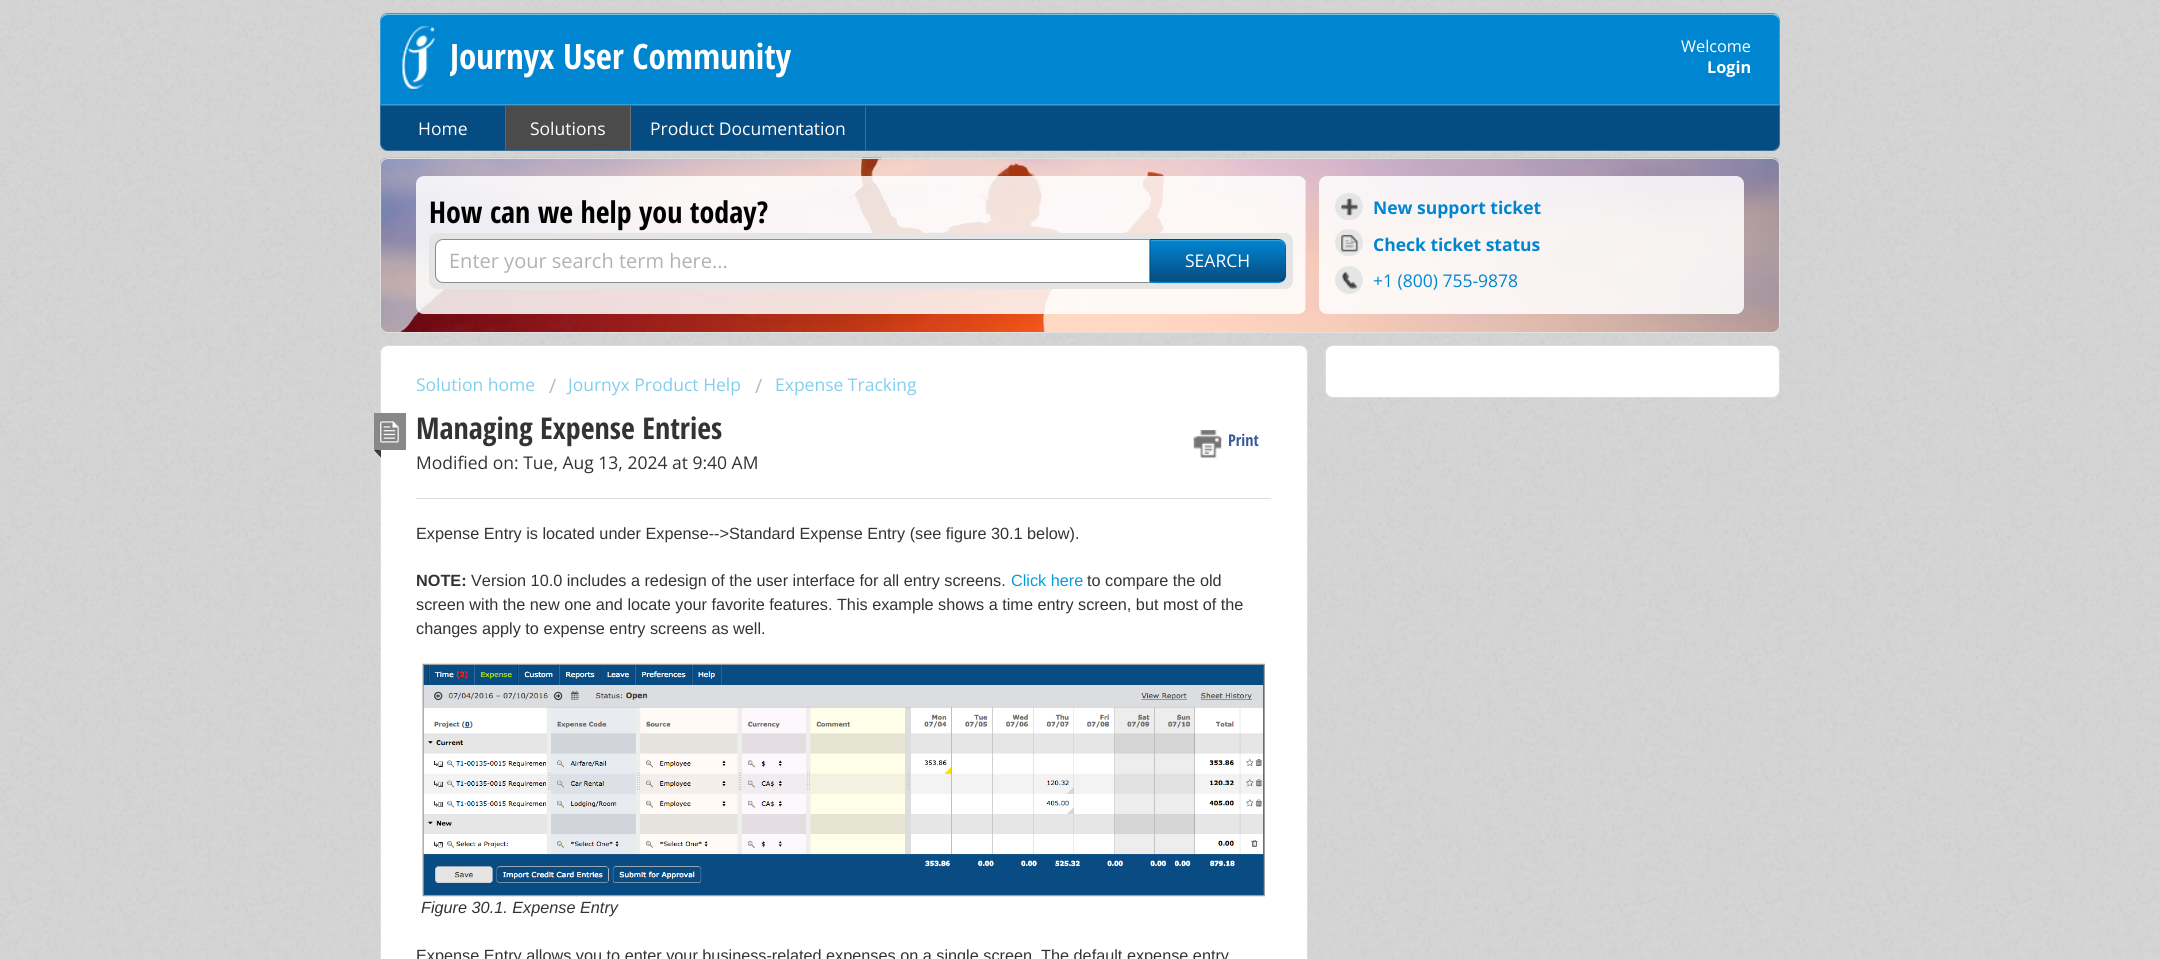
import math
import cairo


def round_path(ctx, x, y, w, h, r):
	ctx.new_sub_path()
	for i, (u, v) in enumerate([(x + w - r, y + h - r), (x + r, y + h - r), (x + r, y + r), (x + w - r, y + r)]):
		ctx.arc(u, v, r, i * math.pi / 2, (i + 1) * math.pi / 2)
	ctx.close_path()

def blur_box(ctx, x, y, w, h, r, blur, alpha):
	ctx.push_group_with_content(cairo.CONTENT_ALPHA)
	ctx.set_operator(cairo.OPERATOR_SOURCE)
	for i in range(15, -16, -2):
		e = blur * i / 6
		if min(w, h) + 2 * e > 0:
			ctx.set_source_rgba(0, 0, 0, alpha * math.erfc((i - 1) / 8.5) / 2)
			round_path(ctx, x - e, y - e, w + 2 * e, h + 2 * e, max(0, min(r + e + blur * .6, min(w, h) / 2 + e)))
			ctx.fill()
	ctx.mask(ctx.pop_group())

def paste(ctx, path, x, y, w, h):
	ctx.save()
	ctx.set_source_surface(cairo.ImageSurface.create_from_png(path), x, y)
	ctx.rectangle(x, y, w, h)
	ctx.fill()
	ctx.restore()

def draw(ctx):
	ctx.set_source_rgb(0.831, 0.831, 0.831)
	ctx.paint()
	paste(ctx, 'media/1.png', 0, 0, 2160, 959)
	ctx.set_source_rgb(0, 0.525, 0.82)
	ctx.new_path()
	ctx.move_to(388, 13)
	ctx.line_to(1772, 13)
	ctx.curve_to(1776.5, 13, 1780, 16.5, 1780, 21)
	ctx.line_to(1780, 105)
	ctx.line_to(380, 105)
	ctx.line_to(380, 21)
	ctx.curve_to(380, 16.5, 383.5, 13, 388, 13)
	ctx.close_path()
	ctx.fill()
	ctx.set_source_rgb(0.502, 0.765, 0.91)
	ctx.new_path()
	ctx.move_to(388, 15)
	ctx.line_to(1772, 15)
	ctx.curve_to(1776, 15, 1779, 18, 1779, 21)
	ctx.curve_to(1779, 17, 1777, 14, 1773, 14)
	ctx.line_to(387, 14)
	ctx.curve_to(383, 14, 381, 17, 381, 21)
	ctx.curve_to(381, 18, 384, 15, 388, 15)
	ctx.close_path()
	ctx.fill()
	ctx.new_path()
	ctx.move_to(388, 13.5)
	ctx.line_to(1772, 13.5)
	ctx.curve_to(1776, 13.5, 1779.5, 17, 1779.5, 21)
	ctx.line_to(1779.5, 104.5)
	ctx.line_to(380.5, 104.5)
	ctx.line_to(380.5, 21)
	ctx.curve_to(380.5, 17, 384, 13.5, 388, 13.5)
	ctx.close_path()
	ctx.set_source_rgba(1, 1, 1, 0.2)
	ctx.set_line_width(1)
	ctx.stroke()
	paste(ctx, 'media/2.png', 402, 26, 34, 63)
	ctx.save()
	ctx.rectangle(450, 30, 961, 54)
	ctx.clip()
	ctx.select_font_face('Open Sans Condensed', cairo.FONT_SLANT_NORMAL, cairo.FONT_WEIGHT_BOLD)
	ctx.set_font_size(35)
	ctx.set_source_rgb(1, 1, 1)
	ctx.move_to(450, 69)
	ctx.show_text('Journyx User Community')
	ctx.restore()
	ctx.select_font_face('Open Sans')
	ctx.set_font_size(16.25)
	ctx.set_source_rgb(1, 1, 1)
	ctx.move_to(1681, 52)
	ctx.show_text('Welcome')
	ctx.select_font_face('Open Sans', cairo.FONT_SLANT_NORMAL, cairo.FONT_WEIGHT_BOLD)
	ctx.move_to(1707, 73)
	ctx.show_text('Login')
	ctx.set_source_rgb(0.02, 0.298, 0.51)
	ctx.new_path()
	ctx.move_to(380, 105)
	ctx.line_to(1780, 105)
	ctx.line_to(1780, 143)
	ctx.curve_to(1780, 147.5, 1776.5, 151, 1772, 151)
	ctx.line_to(388, 151)
	ctx.curve_to(383.5, 151, 380, 147.5, 380, 143)
	ctx.close_path()
	ctx.fill()
	ctx.new_path()
	ctx.move_to(380.5, 105.5)
	ctx.line_to(1779.5, 105.5)
	ctx.line_to(1779.5, 143)
	ctx.curve_to(1779.5, 147, 1776, 150.5, 1772, 150.5)
	ctx.line_to(388, 150.5)
	ctx.curve_to(384, 150.5, 380.5, 147, 380.5, 143)
	ctx.close_path()
	ctx.set_source_rgba(1, 1, 1, 0.2)
	ctx.stroke()
	ctx.set_source_rgb(0.216, 0.439, 0.608)
	ctx.rectangle(505, 106, 1, 44)
	ctx.fill()
	ctx.select_font_face('Open Sans')
	ctx.set_font_size(17.5)
	ctx.set_source_rgb(1, 1, 1)
	ctx.move_to(418, 135)
	ctx.show_text('Home')
	ctx.set_source_rgb(0.298, 0.294, 0.294)
	ctx.rectangle(506, 106, 124, 44)
	ctx.fill()
	ctx.set_source_rgb(0.439, 0.435, 0.435)
	ctx.rectangle(630, 106, 1, 44)
	ctx.fill()
	ctx.set_source_rgb(1, 1, 1)
	ctx.move_to(530, 135)
	ctx.show_text('Solutions')
	ctx.set_source_rgb(0.216, 0.439, 0.608)
	ctx.rectangle(865, 106, 1, 44)
	ctx.fill()
	ctx.set_source_rgb(1, 1, 1)
	ctx.move_to(650, 135)
	ctx.show_text('Product Documentation')
	paste(ctx, 'media/3.png', 380, 157, 1400, 176)
	round_path(ctx, 380.5, 158.5, 1399, 174, 7.5)
	ctx.set_source_rgb(0.878, 0.878, 0.878)
	ctx.stroke()
	ctx.set_source_rgba(1, 1, 1, 0.85)
	round_path(ctx, 416, 176, 890, 138, 8)
	ctx.fill()
	ctx.set_source_rgb(0.898, 0.898, 0.898)
	ctx.rectangle(1305, 180, 1, 130)
	ctx.fill()
	ctx.select_font_face('Open Sans Condensed', cairo.FONT_SLANT_NORMAL, cairo.FONT_WEIGHT_BOLD)
	ctx.set_font_size(30)
	ctx.set_source_rgb(0, 0, 0)
	ctx.move_to(429, 223)
	ctx.show_text('How can we help you today?')
	ctx.set_source_rgb(0.898, 0.898, 0.898)
	round_path(ctx, 429, 233, 864, 56, 8)
	ctx.fill()
	ctx.set_source_rgb(1, 1, 1)
	ctx.new_path()
	ctx.move_to(443, 239.5)
	ctx.line_to(1149.5, 239.5)
	ctx.line_to(1149.5, 282.5)
	ctx.line_to(443, 282.5)
	ctx.curve_to(439, 282.5, 435.5, 279, 435.5, 275)
	ctx.line_to(435.5, 247)
	ctx.curve_to(435.5, 243, 439, 239.5, 443, 239.5)
	ctx.close_path()
	ctx.fill_preserve()
	ctx.set_source_rgb(0.549, 0.549, 0.549)
	ctx.stroke()
	ctx.select_font_face('Open Sans')
	ctx.set_font_size(20)
	ctx.set_source_rgb(0.698, 0.698, 0.698)
	ctx.move_to(449, 268)
	ctx.show_text('Enter your search term here...')
	ctx.set_source_rgb(0, 0, 0)
	blur_box(ctx, 1150, 240, 136, 44, 8, 1, 0.05)
	ctx.save()
	ctx.new_path()
	ctx.move_to(1150, 239)
	ctx.line_to(1278, 239)
	ctx.curve_to(1282.5, 239, 1286, 242.5, 1286, 247)
	ctx.line_to(1286, 275)
	ctx.curve_to(1286, 279.5, 1282.5, 283, 1278, 283)
	ctx.line_to(1150, 283)
	ctx.close_path()
	ctx.clip()
	gradient = cairo.LinearGradient(1218, 199, 1218, 240)
	gradient.add_color_stop_rgba(0, 0, 0.525, 0.82, 1)
	gradient.add_color_stop_rgba(1, 0.02, 0.298, 0.51, 1)
	ctx.set_source(gradient)
	ctx.rectangle(1150, 239, 136, 1)
	ctx.fill()
	gradient = cairo.LinearGradient(1218, 240, 1218, 281)
	gradient.add_color_stop_rgba(0, 0, 0.525, 0.82, 1)
	gradient.add_color_stop_rgba(1, 0.02, 0.298, 0.51, 1)
	ctx.set_source(gradient)
	ctx.rectangle(1150, 240, 136, 41)
	ctx.fill()
	gradient = cairo.LinearGradient(1218, 281, 1218, 323)
	gradient.add_color_stop_rgba(0, 0, 0.525, 0.82, 1)
	gradient.add_color_stop_rgba(1, 0.02, 0.298, 0.51, 1)
	ctx.set_source(gradient)
	ctx.rectangle(1150, 281, 136, 2)
	ctx.fill()
	ctx.restore()
	ctx.set_source_rgba(1, 1, 1, 0.2)
	ctx.new_path()
	ctx.move_to(1151, 241)
	ctx.line_to(1279, 241)
	ctx.curve_to(1282, 241, 1285, 244, 1285, 248)
	ctx.line_to(1285, 246)
	ctx.curve_to(1285, 243, 1282, 240, 1279, 240)
	ctx.line_to(1151, 240)
	ctx.close_path()
	ctx.fill()
	ctx.set_source_rgba(0, 0, 0, 0.1)
	ctx.new_path()
	ctx.move_to(1284, 241)
	ctx.curve_to(1283, 240, 1281, 239, 1279, 239)
	ctx.line_to(1150, 239)
	ctx.line_to(1151, 240)
	ctx.line_to(1280, 240)
	ctx.line_to(1283, 242)
	ctx.close_path()
	ctx.fill()
	ctx.new_path()
	ctx.move_to(1284, 241)
	ctx.curve_to(1285, 242, 1286, 244, 1286, 246)
	ctx.line_to(1286, 275)
	ctx.curve_to(1286, 277, 1285, 279, 1284, 280)
	ctx.line_to(1283, 279)
	ctx.curve_to(1284, 278, 1285, 276.5, 1285, 275)
	ctx.line_to(1285, 246)
	ctx.curve_to(1285, 244.5, 1284, 243, 1283, 242)
	ctx.close_path()
	ctx.fill()
	ctx.set_source_rgba(0, 0, 0, 0.25)
	ctx.new_path()
	ctx.move_to(1284, 280)
	ctx.curve_to(1283, 281, 1281, 282, 1279, 282)
	ctx.line_to(1150, 282)
	ctx.line_to(1152, 281)
	ctx.line_to(1280, 281)
	ctx.line_to(1283, 279)
	ctx.close_path()
	ctx.fill()
	ctx.set_source_rgba(0, 0, 0, 0.1)
	ctx.new_path()
	ctx.move_to(1151, 240)
	ctx.line_to(1151, 281)
	ctx.line_to(1152, 281)
	ctx.line_to(1150, 282)
	ctx.line_to(1150, 239)
	ctx.close_path()
	ctx.fill()
	ctx.set_font_size(17.5)
	ctx.set_source_rgb(1, 1, 1)
	ctx.move_to(1185, 267)
	ctx.show_text('SEARCH')
	ctx.set_source_rgba(1, 1, 1, 0.85)
	round_path(ctx, 1319, 176, 425, 138, 8)
	ctx.fill()
	ctx.set_source_rgb(0.898, 0.898, 0.898)
	round_path(ctx, 1335, 193, 28, 27, 13.5)
	ctx.fill()
	paste(ctx, 'media/4.png', 1340, 197, 18, 19)
	ctx.select_font_face('Open Sans', cairo.FONT_SLANT_NORMAL, cairo.FONT_WEIGHT_BOLD)
	ctx.set_source_rgb(0, 0.525, 0.82)
	ctx.move_to(1373, 214)
	ctx.show_text('New support ticket')
	ctx.set_source_rgb(0.898, 0.898, 0.898)
	round_path(ctx, 1335, 229, 28, 27, 13.5)
	ctx.fill()
	paste(ctx, 'media/5.png', 1340, 234, 18, 18)
	ctx.set_source_rgb(0, 0.525, 0.82)
	ctx.move_to(1373, 251)
	ctx.show_text('Check ticket status')
	ctx.set_source_rgb(0.898, 0.898, 0.898)
	ctx.new_path()
	ctx.arc(1349, 280, 14, 0, 2 * math.pi)
	ctx.fill()
	paste(ctx, 'media/6.png', 1342, 271, 16, 18)
	ctx.select_font_face('Open Sans')
	ctx.set_source_rgb(0, 0.525, 0.82)
	ctx.move_to(1373, 287)
	ctx.show_text('+1 (800) 755-9878')
	ctx.set_source_rgb(1, 1, 1)
	round_path(ctx, 1325.5, 345.5, 454, 52, 7.5)
	ctx.fill_preserve()
	ctx.set_source_rgb(0.863, 0.863, 0.863)
	ctx.stroke()
	ctx.set_source_rgb(1, 1, 1)
	round_path(ctx, 380.5, 345.5, 927, 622, 7.5)
	ctx.fill_preserve()
	ctx.set_source_rgb(0.863, 0.863, 0.863)
	ctx.stroke()
	ctx.set_source_rgb(0.51, 0.808, 0.929)
	ctx.move_to(416, 391)
	ctx.show_text('Solution home')
	ctx.set_font_size(20)
	ctx.set_source_rgb(0.733, 0.733, 0.733)
	ctx.move_to(549, 393)
	ctx.show_text('/')
	ctx.set_font_size(17.5)
	ctx.set_source_rgb(0.51, 0.808, 0.929)
	ctx.move_to(568, 391)
	ctx.show_text('Journyx Product Help')
	ctx.set_font_size(20)
	ctx.set_source_rgb(0.733, 0.733, 0.733)
	ctx.move_to(755, 393)
	ctx.show_text('/')
	ctx.set_font_size(17.5)
	ctx.set_source_rgb(0.51, 0.808, 0.929)
	ctx.move_to(775, 391)
	ctx.show_text('Expense Tracking')
	ctx.set_source_rgb(0.533, 0.533, 0.533)
	ctx.rectangle(374, 413, 32, 37)
	ctx.fill()
	paste(ctx, 'media/7.png', 379, 420, 20, 23)
	ctx.set_source_rgb(0.2, 0.2, 0.2)
	ctx.new_path()
	ctx.move_to(374, 450)
	ctx.line_to(381, 450)
	ctx.line_to(377.5, 454)
	ctx.close_path()
	ctx.fill()
	ctx.new_path()
	ctx.move_to(381, 450)
	ctx.line_to(381, 457.5)
	ctx.line_to(377.5, 454)
	ctx.close_path()
	ctx.fill()
	ctx.select_font_face('Open Sans Condensed', cairo.FONT_SLANT_NORMAL, cairo.FONT_WEIGHT_BOLD)
	ctx.set_font_size(30)
	ctx.move_to(416, 439)
	ctx.show_text('Managing Expense Entries')
	paste(ctx, 'media/8.png', 1193, 430, 29, 28)
	ctx.set_font_size(16.25)
	ctx.set_source_rgb(0.231, 0.349, 0.596)
	ctx.move_to(1228, 446)
	ctx.show_text('Print')
	ctx.select_font_face('Open Sans')
	ctx.set_font_size(17.5)
	ctx.set_source_rgb(0.2, 0.2, 0.2)
	ctx.move_to(416, 469)
	ctx.show_text('Modified on: Tue, Aug 13, 2024 at 9:40 AM')
	ctx.set_source_rgb(0.863, 0.863, 0.863)
	ctx.rectangle(416, 498, 855, 1)
	ctx.fill()
	ctx.select_font_face('Liberation Sans')
	ctx.set_font_size(16.25)
	ctx.set_source_rgb(0.2, 0.2, 0.2)
	ctx.move_to(416, 539)
	ctx.show_text('Expense Entry is located under Expense-->Standard Expense Entry (see figure 30.1 below).')
	ctx.select_font_face('Liberation Sans', cairo.FONT_SLANT_NORMAL, cairo.FONT_WEIGHT_BOLD)
	ctx.move_to(416, 586)
	ctx.show_text('NOTE:')
	ctx.select_font_face('Liberation Sans')
	ctx.move_to(471, 586)
	ctx.show_text('Version 10.0 includes a redesign of the user interface for all entry screens.')
	ctx.set_source_rgb(0.016, 0.612, 0.859)
	ctx.move_to(1011, 586)
	ctx.show_text('Click here')
	ctx.set_source_rgb(0.2, 0.2, 0.2)
	for x, y, s in [
		(1087, 586, 'to compare the old'),
		(416, 610, 'screen with the new one and locate your favorite features. This example shows a time entry screen, but most of the'),
		(416, 634, 'changes apply to expense entry screens as well.'),
	]:
		ctx.move_to(x, y)
		ctx.show_text(s)
	paste(ctx, 'media/9.png', 422, 663, 843, 234)
	ctx.select_font_face('Liberation Sans', cairo.FONT_SLANT_ITALIC)
	ctx.move_to(421, 913)
	ctx.show_text('Figure 30.1. Expense Entry')
	ctx.select_font_face('Liberation Sans')
	ctx.move_to(416, 961)
	ctx.show_text('Expense Entry allows you to enter your business-related expenses on a single screen. The default expense entry')


surface = cairo.ImageSurface(cairo.FORMAT_RGB24, 2160, 959)
ctx = cairo.Context(surface)
options = cairo.FontOptions()
options.set_hint_metrics(cairo.HINT_METRICS_OFF)
options.set_hint_style(cairo.HINT_STYLE_NONE)
ctx.set_font_options(options)
ctx.set_miter_limit(4)
draw(ctx)
surface.write_to_png('image.png')
